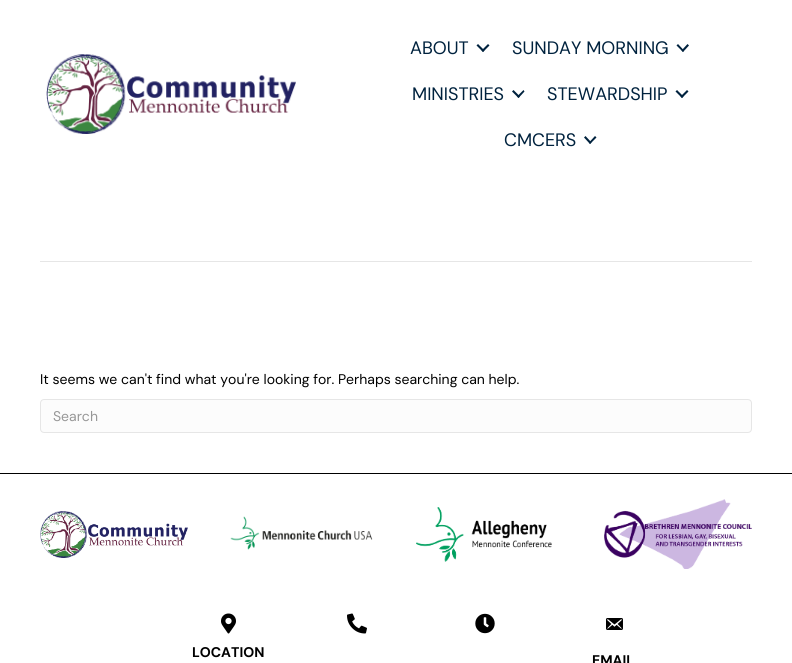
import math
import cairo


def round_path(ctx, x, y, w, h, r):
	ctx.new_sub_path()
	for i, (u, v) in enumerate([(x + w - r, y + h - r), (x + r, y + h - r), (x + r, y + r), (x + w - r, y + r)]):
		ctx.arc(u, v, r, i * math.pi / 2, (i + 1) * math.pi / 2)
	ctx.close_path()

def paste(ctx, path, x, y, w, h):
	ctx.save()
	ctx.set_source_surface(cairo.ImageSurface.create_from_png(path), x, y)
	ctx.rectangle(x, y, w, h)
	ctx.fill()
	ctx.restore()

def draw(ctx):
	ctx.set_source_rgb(1, 1, 1)
	ctx.paint()
	paste(ctx, 'media/1.png', 46, 54, 250, 80)
	ctx.select_font_face('DM Sans')
	ctx.set_font_size(18)
	ctx.set_source_rgb(0, 0.133, 0.243)
	ctx.move_to(410, 54)
	ctx.show_text('ABOUT')
	ctx.new_path()
	ctx.move_to(488, 44)
	ctx.line_to(489.5, 45.5)
	ctx.line_to(483, 52)
	ctx.line_to(481.5, 50.5)
	ctx.close_path()
	ctx.fill()
	ctx.new_path()
	ctx.move_to(478, 44)
	ctx.line_to(484.5, 50.5)
	ctx.line_to(483, 52)
	ctx.line_to(476.5, 45.5)
	ctx.close_path()
	ctx.fill()
	ctx.move_to(512, 54)
	ctx.show_text('SUNDAY MORNING')
	ctx.new_path()
	ctx.move_to(687.5, 44)
	ctx.line_to(689, 45.5)
	ctx.line_to(683, 52)
	ctx.line_to(681.5, 50.5)
	ctx.close_path()
	ctx.fill()
	ctx.new_path()
	ctx.move_to(678, 44)
	ctx.line_to(684, 50.5)
	ctx.line_to(683, 52)
	ctx.line_to(676.5, 45.5)
	ctx.close_path()
	ctx.fill()
	ctx.move_to(412, 100)
	ctx.show_text('MINISTRIES')
	ctx.new_path()
	ctx.move_to(523.5, 90)
	ctx.line_to(524.5, 91.5)
	ctx.line_to(518.5, 98)
	ctx.line_to(517, 96.5)
	ctx.close_path()
	ctx.fill()
	ctx.new_path()
	ctx.move_to(513.5, 90)
	ctx.line_to(520, 96.5)
	ctx.line_to(518.5, 98)
	ctx.line_to(512, 91.5)
	ctx.close_path()
	ctx.fill()
	ctx.move_to(547, 100)
	ctx.show_text('STEWARDSHIP')
	ctx.new_path()
	ctx.move_to(687, 90)
	ctx.line_to(688.5, 91.5)
	ctx.line_to(682, 98)
	ctx.line_to(680.5, 96.5)
	ctx.close_path()
	ctx.fill()
	ctx.new_path()
	ctx.move_to(677, 90)
	ctx.line_to(683.5, 96.5)
	ctx.line_to(682, 98)
	ctx.line_to(675.5, 91.5)
	ctx.close_path()
	ctx.fill()
	ctx.move_to(504, 146)
	ctx.show_text('CMCERS')
	ctx.new_path()
	ctx.move_to(595, 136)
	ctx.line_to(596.5, 137.5)
	ctx.line_to(590, 144)
	ctx.line_to(589, 142.5)
	ctx.close_path()
	ctx.fill()
	ctx.new_path()
	ctx.move_to(585.5, 136)
	ctx.line_to(591.5, 142.5)
	ctx.line_to(590, 144)
	ctx.line_to(584, 137.5)
	ctx.close_path()
	ctx.fill()
	ctx.set_source_rgb(0.902, 0.902, 0.902)
	ctx.rectangle(40, 261, 712, 1)
	ctx.fill()
	ctx.set_font_size(14)
	ctx.set_source_rgb(0, 0, 0)
	ctx.move_to(40, 384)
	ctx.show_text('It seems we can\'t find what you\'re looking for. Perhaps searching can help.')
	ctx.set_source_rgb(0.988, 0.988, 0.988)
	round_path(ctx, 40.5, 399.5, 711, 33, 3.5)
	ctx.fill_preserve()
	ctx.set_source_rgb(0.902, 0.902, 0.902)
	ctx.set_line_width(1)
	ctx.stroke()
	ctx.set_source_rgb(0.592, 0.592, 0.592)
	ctx.move_to(53, 421)
	ctx.show_text('Search')
	ctx.set_source_rgb(0, 0, 0)
	ctx.rectangle(0, 473, 792, 1)
	ctx.fill()
	paste(ctx, 'media/2.png', 40, 511, 148, 47)
	paste(ctx, 'media/3.png', 230, 516, 143, 34)
	paste(ctx, 'media/4.png', 416, 507, 136, 55)
	paste(ctx, 'media/5.png', 604, 499, 148, 70)
	paste(ctx, 'media/6.png', 347, 613, 20, 21)
	paste(ctx, 'media/7.png', 475, 613, 20, 21)
	paste(ctx, 'media/8.png', 221, 613, 15, 21)
	ctx.select_font_face('DM Sans', cairo.FONT_SLANT_NORMAL, cairo.FONT_WEIGHT_BOLD)
	ctx.move_to(192, 657)
	ctx.show_text('LOCATION')
	paste(ctx, 'media/9.png', 606, 618, 17, 12)
	ctx.move_to(592, 665)
	ctx.show_text('EMAIL')


surface = cairo.ImageSurface(cairo.FORMAT_RGB24, 792, 663)
ctx = cairo.Context(surface)
options = cairo.FontOptions()
options.set_hint_metrics(cairo.HINT_METRICS_OFF)
options.set_hint_style(cairo.HINT_STYLE_NONE)
ctx.set_font_options(options)
ctx.set_miter_limit(4)
draw(ctx)
surface.write_to_png('image.png')
